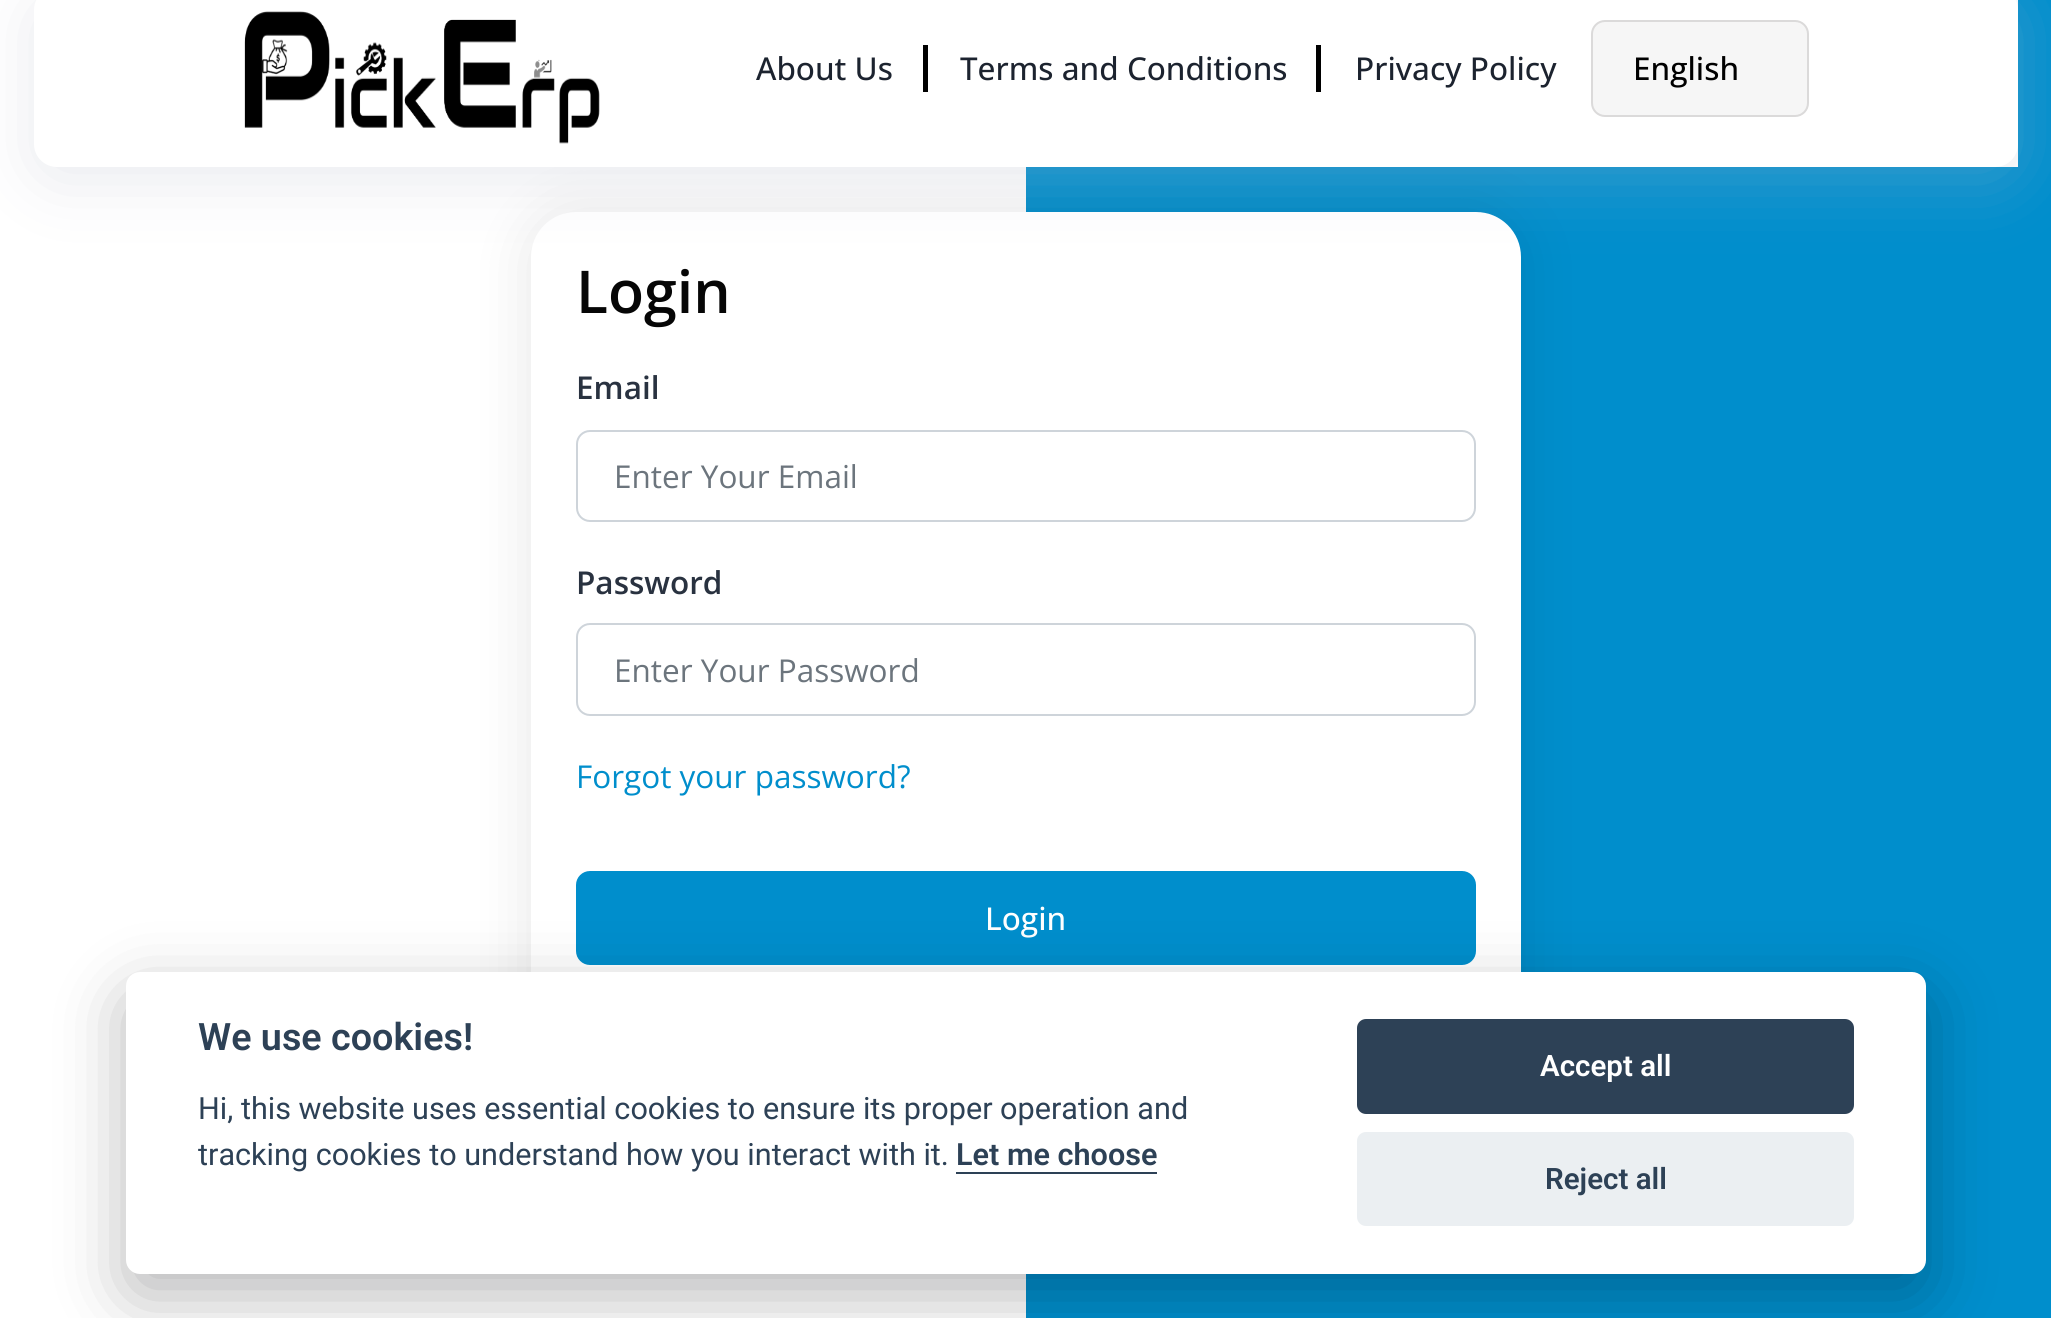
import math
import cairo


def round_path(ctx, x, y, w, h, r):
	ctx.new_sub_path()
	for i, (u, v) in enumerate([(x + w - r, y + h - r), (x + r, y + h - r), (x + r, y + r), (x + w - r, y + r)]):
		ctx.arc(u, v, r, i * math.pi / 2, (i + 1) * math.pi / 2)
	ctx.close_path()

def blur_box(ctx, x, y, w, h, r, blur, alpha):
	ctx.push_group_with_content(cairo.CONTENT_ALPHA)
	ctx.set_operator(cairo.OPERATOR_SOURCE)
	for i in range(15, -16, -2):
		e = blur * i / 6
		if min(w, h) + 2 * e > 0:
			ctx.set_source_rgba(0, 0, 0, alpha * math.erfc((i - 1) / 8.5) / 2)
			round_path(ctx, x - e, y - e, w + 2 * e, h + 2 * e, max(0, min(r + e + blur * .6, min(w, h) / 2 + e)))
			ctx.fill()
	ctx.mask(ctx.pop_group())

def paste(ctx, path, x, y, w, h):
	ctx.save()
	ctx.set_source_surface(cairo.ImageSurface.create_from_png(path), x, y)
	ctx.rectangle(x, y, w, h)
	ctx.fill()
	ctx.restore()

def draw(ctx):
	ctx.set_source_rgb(1, 1, 1)
	ctx.paint()
	ctx.set_source_rgb(0, 0.557, 0.8)
	ctx.rectangle(1026, 0, 1025, 1318)
	ctx.fill()
	ctx.set_source_rgb(0, 0, 0)
	blur_box(ctx, 531, 212, 990, 985, 45, 28, 0.1)
	ctx.set_source_rgb(1, 1, 1)
	ctx.rectangle(1026, 0, 992, 167)
	ctx.fill()
	round_path(ctx, 531, 212, 990, 985, 45)
	ctx.fill()
	ctx.set_source_rgb(0.714, 0.729, 0.796)
	blur_box(ctx, 34, 0, 1984, 180, 23, 34, 0.3)
	ctx.set_source_rgb(1, 1, 1)
	round_path(ctx, 34, -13, 1984, 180, 23)
	ctx.fill()
	paste(ctx, 'media/1.png', 244, 11, 356, 133)
	ctx.select_font_face('Open Sans Medium')
	ctx.set_font_size(31.5)
	ctx.set_source_rgb(0.11, 0.137, 0.184)
	ctx.move_to(756, 80)
	ctx.show_text('About Us')
	ctx.set_source_rgb(0, 0, 0)
	ctx.rectangle(923, 45, 5, 47)
	ctx.fill()
	ctx.set_source_rgb(0.11, 0.137, 0.184)
	ctx.move_to(960, 80)
	ctx.show_text('Terms and Conditions')
	ctx.set_source_rgb(0, 0, 0)
	ctx.rectangle(1316, 45, 5, 47)
	ctx.fill()
	ctx.set_source_rgb(0.11, 0.137, 0.184)
	ctx.move_to(1355, 80)
	ctx.show_text('Privacy Policy')
	ctx.set_source_rgb(0.961, 0.961, 0.961)
	round_path(ctx, 1591, 20, 218, 97, 14)
	ctx.fill()
	round_path(ctx, 1592, 21, 216, 95, 13)
	ctx.set_source_rgba(0.431, 0.416, 0.416, 0.2)
	ctx.stroke()
	ctx.set_source_rgb(0, 0, 0)
	ctx.move_to(1633, 80)
	ctx.show_text('English')
	ctx.select_font_face('Open Sans SemiBold')
	ctx.set_font_size(59)
	ctx.set_source_rgb(0.024, 0.024, 0.024)
	ctx.move_to(576, 313)
	ctx.show_text('Login')
	ctx.set_font_size(31.5)
	ctx.set_source_rgb(0.161, 0.196, 0.251)
	ctx.move_to(576, 399)
	ctx.show_text('Email')
	round_path(ctx, 577, 431, 898, 90, 13)
	ctx.set_source_rgb(0.808, 0.831, 0.855)
	ctx.stroke()
	ctx.select_font_face('Open Sans')
	ctx.set_source_rgb(0.424, 0.459, 0.49)
	ctx.move_to(614, 488)
	ctx.show_text('Enter Your Email')
	ctx.select_font_face('Open Sans SemiBold')
	ctx.set_source_rgb(0.161, 0.196, 0.251)
	ctx.move_to(576, 594)
	ctx.show_text('Password')
	round_path(ctx, 577, 624, 898, 91, 13)
	ctx.set_source_rgb(0.808, 0.831, 0.855)
	ctx.stroke()
	ctx.select_font_face('Open Sans')
	ctx.set_source_rgb(0.424, 0.459, 0.49)
	ctx.move_to(614, 682)
	ctx.show_text('Enter Your Password')
	ctx.set_source_rgb(0, 0.557, 0.8)
	ctx.move_to(576, 788)
	ctx.show_text('Forgot your password?')
	round_path(ctx, 577, 872, 898, 92, 13)
	ctx.fill_preserve()
	ctx.stroke()
	ctx.select_font_face('Open Sans Medium')
	ctx.set_source_rgb(1, 1, 1)
	ctx.move_to(985, 930)
	ctx.show_text('Login')
	ctx.set_source_rgb(0.008, 0.008, 0.012)
	blur_box(ctx, 126, 995, 1800, 301, 14, 34, 0.28)
	ctx.set_source_rgb(1, 1, 1)
	round_path(ctx, 126, 972, 1800, 302, 14)
	ctx.fill()
	ctx.select_font_face('Roboto SemiBold')
	ctx.set_font_size(37.75)
	ctx.set_source_rgb(0.176, 0.255, 0.337)
	ctx.move_to(198, 1050)
	ctx.show_text('We use cookies!')
	ctx.select_font_face('Roboto')
	ctx.set_font_size(30.6)
	ctx.move_to(198, 1119)
	ctx.show_text('Hi, this website uses essential cookies to ensure its proper operation and')
	ctx.move_to(198, 1165)
	ctx.show_text('tracking cookies to understand how you interact with it.')
	ctx.select_font_face('Roboto SemiBold')
	ctx.move_to(956, 1165)
	ctx.show_text('Let me choose')
	ctx.rectangle(956, 1172, 201, 2)
	ctx.fill()
	round_path(ctx, 1357, 1019, 497, 95, 9)
	ctx.fill()
	ctx.set_font_size(29.5)
	ctx.set_source_rgb(1, 1, 1)
	ctx.move_to(1540, 1076)
	ctx.show_text('Accept all')
	ctx.set_source_rgb(0.918, 0.937, 0.949)
	round_path(ctx, 1357, 1132, 497, 94, 9)
	ctx.fill()
	ctx.set_source_rgb(0.176, 0.255, 0.337)
	ctx.move_to(1545, 1189)
	ctx.show_text('Reject all')


surface = cairo.ImageSurface(cairo.FORMAT_RGB24, 2051, 1318)
ctx = cairo.Context(surface)
options = cairo.FontOptions()
options.set_hint_metrics(cairo.HINT_METRICS_OFF)
options.set_hint_style(cairo.HINT_STYLE_NONE)
ctx.set_font_options(options)
ctx.set_miter_limit(4)
draw(ctx)
surface.write_to_png('image.png')
